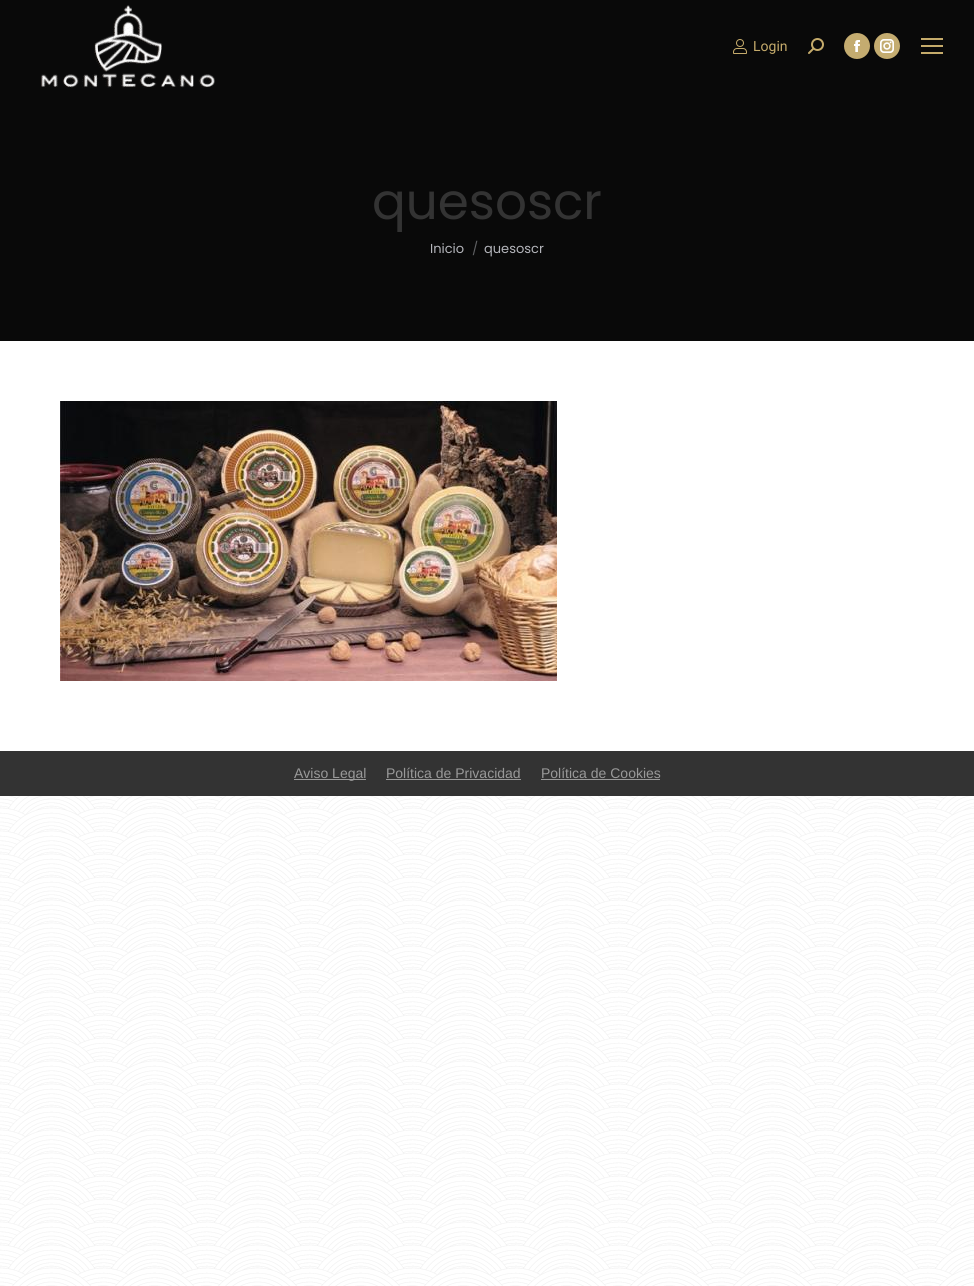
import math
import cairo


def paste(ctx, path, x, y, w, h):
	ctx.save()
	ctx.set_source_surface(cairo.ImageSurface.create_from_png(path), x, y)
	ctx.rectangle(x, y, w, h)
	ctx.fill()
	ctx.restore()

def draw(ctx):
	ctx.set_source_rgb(1, 1, 1)
	ctx.paint()
	paste(ctx, 'media/1.png', 0, 796, 974, 490)
	ctx.set_source_rgb(0.039, 0.039, 0.039)
	ctx.rectangle(0, 0, 974, 341)
	ctx.fill()
	paste(ctx, 'media/2.png', 41, 5, 174, 83)
	paste(ctx, 'media/3.png', 733, 39, 14, 15)
	ctx.select_font_face('Roboto')
	ctx.set_font_size(14)
	ctx.set_source_rgb(0.773, 0.671, 0.42)
	ctx.move_to(753, 51)
	ctx.show_text('Login')
	paste(ctx, 'media/4.png', 808, 38, 16, 16)
	ctx.set_source_rgb(0.769, 0.675, 0.439)
	ctx.arc(857, 46, 13, 0, 2 * math.pi)
	ctx.fill()
	paste(ctx, 'media/5.png', 854, 40, 6, 12)
	ctx.arc(887, 46, 13, 0, 2 * math.pi)
	ctx.fill()
	paste(ctx, 'media/6.png', 880, 39, 14, 14)
	ctx.set_source_rgb(0.773, 0.671, 0.42)
	ctx.rectangle(921, 38, 22, 2)
	ctx.rectangle(921, 45, 22, 2)
	ctx.rectangle(921, 52, 22, 2)
	ctx.fill()
	ctx.select_font_face('Poppins')
	ctx.set_font_size(50)
	ctx.set_source_rgb(0.2, 0.2, 0.2)
	ctx.move_to(372, 219)
	ctx.show_text('quesoscr')
	ctx.set_font_size(13)
	ctx.set_source_rgb(0.706, 0.71, 0.733)
	ctx.move_to(430, 253)
	ctx.show_text('Inicio')
	ctx.set_source_rgb(0.373, 0.376, 0.388)
	ctx.move_to(472, 253)
	ctx.show_text('/')
	ctx.set_source_rgb(0.706, 0.71, 0.733)
	ctx.move_to(484, 253)
	ctx.show_text('quesoscr')
	paste(ctx, 'media/7.png', 60, 401, 497, 280)
	ctx.set_source_rgb(0.2, 0.2, 0.2)
	ctx.rectangle(0, 751, 974, 45)
	ctx.fill()
	ctx.set_source_rgb(0.6, 0.6, 0.6)
	ctx.rectangle(294, 779, 72, 1)
	ctx.fill()
	ctx.select_font_face('Liberation Sans')
	ctx.set_font_size(14)
	ctx.move_to(294, 778)
	ctx.show_text('Aviso Legal')
	ctx.move_to(386, 778)
	ctx.show_text('Política de Privacidad')
	ctx.rectangle(386, 779, 135, 1)
	ctx.fill()
	ctx.move_to(541, 778)
	ctx.show_text('Política de Cookies')
	ctx.rectangle(541, 779, 119, 1)
	ctx.fill()


surface = cairo.ImageSurface(cairo.FORMAT_RGB24, 974, 1286)
ctx = cairo.Context(surface)
options = cairo.FontOptions()
options.set_hint_metrics(cairo.HINT_METRICS_OFF)
options.set_hint_style(cairo.HINT_STYLE_NONE)
ctx.set_font_options(options)
ctx.set_miter_limit(4)
draw(ctx)
surface.write_to_png('image.png')
